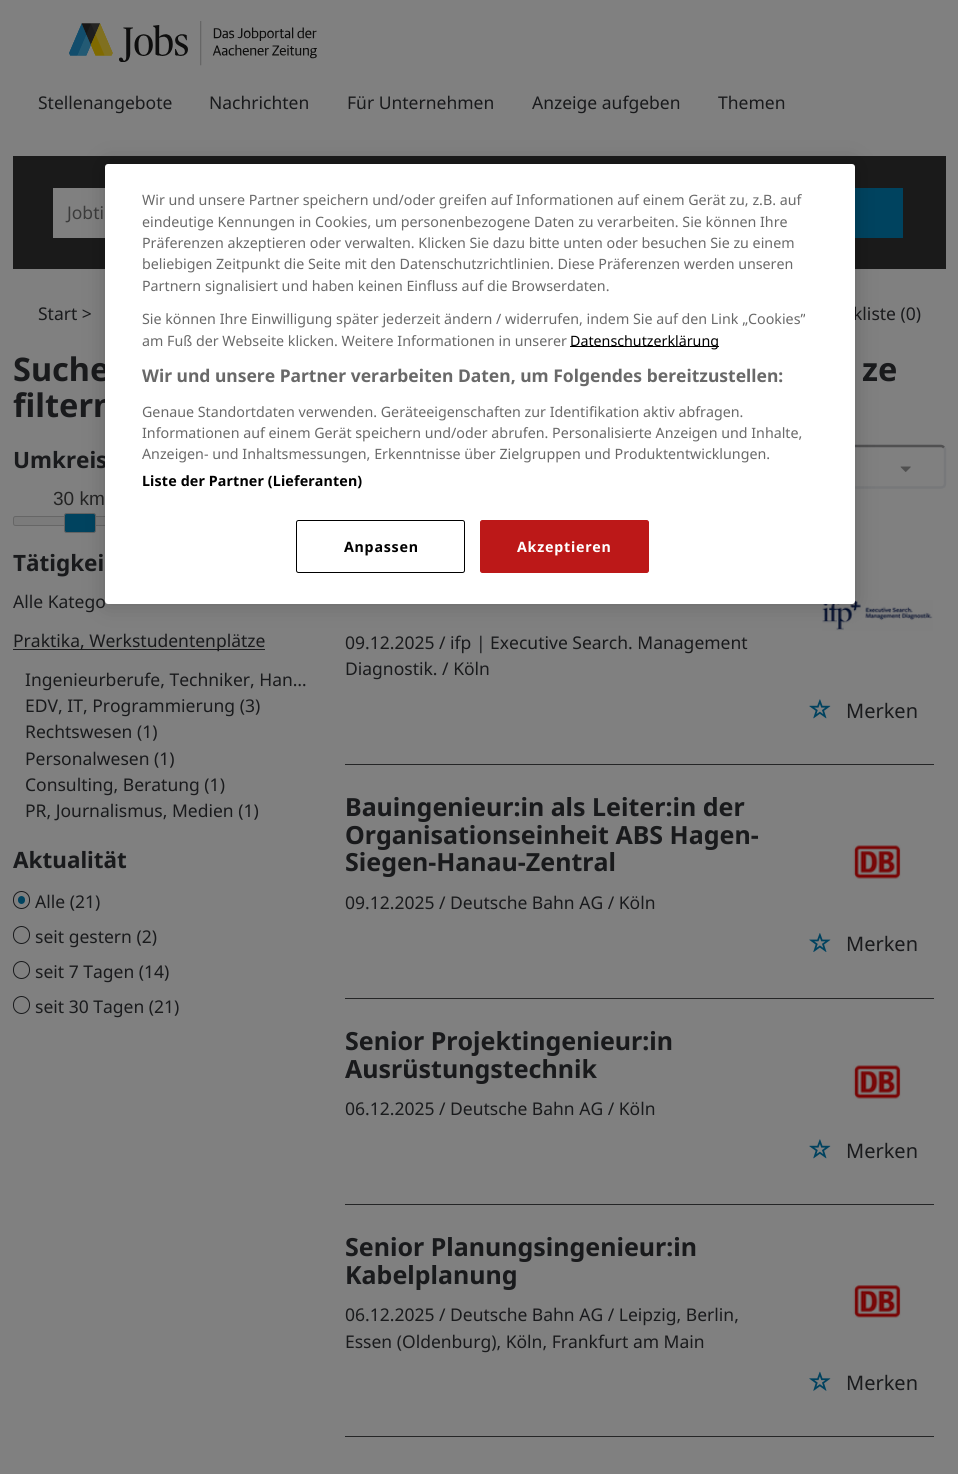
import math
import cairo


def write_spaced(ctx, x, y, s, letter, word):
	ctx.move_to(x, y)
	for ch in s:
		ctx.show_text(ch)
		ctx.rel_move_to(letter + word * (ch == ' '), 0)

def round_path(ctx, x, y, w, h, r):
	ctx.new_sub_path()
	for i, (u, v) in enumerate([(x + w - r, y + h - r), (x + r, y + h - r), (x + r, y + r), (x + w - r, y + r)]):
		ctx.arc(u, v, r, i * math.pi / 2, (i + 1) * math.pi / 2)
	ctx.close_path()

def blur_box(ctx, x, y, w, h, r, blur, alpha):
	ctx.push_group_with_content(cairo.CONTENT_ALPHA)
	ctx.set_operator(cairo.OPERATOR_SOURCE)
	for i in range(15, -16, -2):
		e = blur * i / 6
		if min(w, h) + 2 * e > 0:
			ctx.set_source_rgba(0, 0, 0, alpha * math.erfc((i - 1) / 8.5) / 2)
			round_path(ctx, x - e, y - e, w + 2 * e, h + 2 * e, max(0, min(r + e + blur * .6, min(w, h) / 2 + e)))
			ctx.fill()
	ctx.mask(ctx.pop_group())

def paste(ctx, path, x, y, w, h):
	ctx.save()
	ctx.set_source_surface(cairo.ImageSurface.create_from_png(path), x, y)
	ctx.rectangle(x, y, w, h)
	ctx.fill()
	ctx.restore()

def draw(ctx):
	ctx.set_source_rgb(0.502, 0.502, 0.502)
	ctx.paint()
	paste(ctx, 'media/1.png', 69, 21, 248, 45)
	ctx.select_font_face('Noto Sans')
	ctx.set_font_size(17.5)
	ctx.set_source_rgb(0.098, 0.102, 0.11)
	for x, y, s in [
		(38, 109, 'Stellenangebote'),
		(209, 109, 'Nachrichten'),
		(347, 109, 'Für Unternehmen'),
		(532, 109, 'Anzeige aufgeben'),
		(718, 109, 'Themen'),
	]:
		ctx.move_to(x, y)
		ctx.show_text(s)
	ctx.set_source_rgb(0.102, 0.102, 0.102)
	ctx.rectangle(13, 156, 933, 113)
	ctx.fill()
	ctx.set_source_rgb(0.502, 0.502, 0.502)
	ctx.rectangle(53, 188, 52, 50)
	ctx.fill()
	ctx.set_source_rgb(0.231, 0.231, 0.231)
	ctx.move_to(67, 219)
	ctx.show_text('Jobti')
	ctx.set_source_rgb(0, 0.263, 0.373)
	ctx.rectangle(855, 188, 48, 50)
	ctx.fill()
	ctx.set_source_rgb(0.098, 0.102, 0.11)
	ctx.move_to(38, 320)
	ctx.show_text('Start >')
	ctx.move_to(853, 320)
	ctx.show_text('kliste (0)')
	ctx.select_font_face('Noto Sans', cairo.FONT_SLANT_NORMAL, cairo.FONT_WEIGHT_BOLD)
	ctx.set_font_size(32.5)
	ctx.move_to(13, 381)
	ctx.show_text('Suche')
	ctx.move_to(13, 417)
	ctx.show_text('filtern')
	ctx.set_font_size(22.5)
	ctx.move_to(13, 468)
	ctx.show_text('Umkreis')
	ctx.set_source_rgb(0.482, 0.482, 0.482)
	round_path(ctx, 13.5, 516.5, 212, 9, 2)
	ctx.fill_preserve()
	ctx.set_source_rgb(0.4, 0.4, 0.4)
	ctx.set_line_width(1)
	ctx.stroke()
	ctx.set_source_rgb(0, 0.263, 0.373)
	round_path(ctx, 64.5, 513.5, 31, 19, 2)
	ctx.fill_preserve()
	ctx.set_source_rgb(0.388, 0.388, 0.388)
	ctx.stroke()
	ctx.select_font_face('Liberation Sans')
	ctx.set_font_size(19)
	ctx.set_source_rgb(0.137, 0.137, 0.137)
	ctx.move_to(53, 505)
	ctx.show_text('30 km')
	ctx.select_font_face('Noto Sans', cairo.FONT_SLANT_NORMAL, cairo.FONT_WEIGHT_BOLD)
	ctx.set_font_size(22.5)
	ctx.set_source_rgb(0.098, 0.102, 0.11)
	ctx.move_to(13, 571)
	ctx.show_text('Tätigkei')
	ctx.select_font_face('Noto Sans')
	ctx.set_font_size(17.5)
	ctx.move_to(13, 608)
	ctx.show_text('Alle Katego')
	ctx.rectangle(13, 649, 252, 1)
	ctx.fill()
	for x, y, s in [
		(13, 647, 'Praktika, Werkstudentenplätze'),
		(25, 686, 'Ingenieurberufe, Techniker, Han…'),
		(25, 712, 'EDV, IT, Programmierung (3)'),
		(25, 738, 'Rechtswesen (1)'),
		(25, 765, 'Personalwesen (1)'),
		(25, 791, 'Consulting, Beratung (1)'),
		(25, 817, 'PR, Journalismus, Medien (1)'),
	]:
		ctx.move_to(x, y)
		ctx.show_text(s)
	ctx.select_font_face('Noto Sans', cairo.FONT_SLANT_NORMAL, cairo.FONT_WEIGHT_BOLD)
	ctx.set_font_size(22.5)
	ctx.move_to(13, 868)
	ctx.show_text('Aktualität')
	ctx.set_source_rgb(0, 0.263, 0.373)
	round_path(ctx, 18, 896, 7, 8, 3.5)
	ctx.fill()
	round_path(ctx, 13.5, 891.5, 16, 17, 8)
	ctx.set_source_rgb(0.098, 0.102, 0.11)
	ctx.stroke()
	ctx.select_font_face('Noto Sans')
	ctx.set_font_size(17.5)
	ctx.move_to(35, 908)
	ctx.show_text('Alle (21)')
	round_path(ctx, 13.5, 926.5, 16, 17, 8)
	ctx.stroke()
	ctx.move_to(35, 943)
	ctx.show_text('seit gestern (2)')
	round_path(ctx, 13.5, 961.5, 16, 17, 8)
	ctx.stroke()
	ctx.move_to(35, 978)
	ctx.show_text('seit 7 Tagen (14)')
	round_path(ctx, 13.5, 996.5, 16, 17, 8)
	ctx.stroke()
	ctx.move_to(35, 1013)
	ctx.show_text('seit 30 Tagen (21)')
	ctx.select_font_face('Noto Sans', cairo.FONT_SLANT_NORMAL, cairo.FONT_WEIGHT_BOLD)
	ctx.set_font_size(32.5)
	ctx.move_to(862, 381)
	ctx.show_text('ze')
	ctx.new_path()
	ctx.move_to(944, 447.5)
	ctx.curve_to(944.5, 448, 945, 449, 945, 450)
	ctx.line_to(945, 484)
	ctx.curve_to(945, 484.5, 944.5, 485.5, 944, 486.5)
	ctx.curve_to(943, 487, 942, 487.5, 941, 487.5)
	ctx.line_to(751, 487.5)
	ctx.curve_to(750.5, 487.5, 749.5, 487, 748.5, 486.5)
	ctx.set_source_rgb(0.467, 0.471, 0.478)
	ctx.set_line_width(2.5)
	ctx.stroke()
	ctx.new_path()
	ctx.move_to(748.5, 486.5)
	ctx.curve_to(748, 485.5, 747.5, 484.5, 747.5, 484)
	ctx.line_to(747.5, 450)
	ctx.curve_to(747.5, 449, 748, 448, 748.5, 447.5)
	ctx.curve_to(749.5, 446.5, 750.5, 446, 751, 446)
	ctx.line_to(941, 446)
	ctx.curve_to(942, 446, 943, 446.5, 944, 447.5)
	ctx.set_source_rgb(0.314, 0.314, 0.318)
	ctx.stroke()
	paste(ctx, 'media/2.png', 900, 466, 11, 6)
	paste(ctx, 'media/3.png', 822, 600, 111, 31)
	ctx.select_font_face('Noto Sans')
	ctx.set_font_size(17.5)
	ctx.set_source_rgb(0.098, 0.102, 0.11)
	ctx.move_to(345, 649)
	ctx.show_text('09.12.2025 / ifp | Executive Search. Management')
	ctx.move_to(345, 675)
	ctx.show_text('Diagnostik. / Köln')
	paste(ctx, 'media/4.png', 809, 699, 22, 20)
	ctx.set_font_size(20)
	ctx.move_to(846, 718)
	ctx.show_text('Merken')
	ctx.set_source_rgb(0.141, 0.145, 0.149)
	ctx.rectangle(345, 764, 589, 1)
	ctx.fill()
	ctx.select_font_face('Noto Sans', cairo.FONT_SLANT_NORMAL, cairo.FONT_WEIGHT_BOLD)
	ctx.set_font_size(25)
	ctx.set_source_rgb(0.098, 0.102, 0.11)
	for x, y, s in [
		(345, 816, 'Bauingenieur:in als Leiter:in der'),
		(345, 844, 'Organisationseinheit ABS Hagen-'),
		(345, 871, 'Siegen-Hanau-Zentral'),
	]:
		ctx.move_to(x, y)
		ctx.show_text(s)
	paste(ctx, 'media/5.png', 853, 845, 48, 34)
	ctx.select_font_face('Noto Sans')
	ctx.set_font_size(17.5)
	ctx.move_to(345, 909)
	ctx.show_text('09.12.2025 / Deutsche Bahn AG / Köln')
	paste(ctx, 'media/6.png', 809, 933, 22, 19)
	ctx.set_font_size(20)
	ctx.move_to(846, 951)
	ctx.show_text('Merken')
	ctx.set_source_rgb(0.141, 0.145, 0.149)
	ctx.rectangle(345, 998, 589, 1)
	ctx.fill()
	ctx.select_font_face('Noto Sans', cairo.FONT_SLANT_NORMAL, cairo.FONT_WEIGHT_BOLD)
	ctx.set_font_size(25)
	ctx.set_source_rgb(0.098, 0.102, 0.11)
	ctx.move_to(345, 1050)
	ctx.show_text('Senior Projektingenieur:in')
	ctx.move_to(345, 1078)
	ctx.show_text('Ausrüstungstechnik')
	paste(ctx, 'media/5.png', 853, 1065, 48, 34)
	ctx.select_font_face('Noto Sans')
	ctx.set_font_size(17.5)
	ctx.move_to(345, 1115)
	ctx.show_text('06.12.2025 / Deutsche Bahn AG / Köln')
	paste(ctx, 'media/4.png', 809, 1139, 22, 20)
	ctx.set_font_size(20)
	ctx.move_to(846, 1158)
	ctx.show_text('Merken')
	ctx.set_source_rgb(0.141, 0.145, 0.149)
	ctx.rectangle(345, 1204, 589, 1)
	ctx.fill()
	ctx.select_font_face('Noto Sans', cairo.FONT_SLANT_NORMAL, cairo.FONT_WEIGHT_BOLD)
	ctx.set_font_size(25)
	ctx.set_source_rgb(0.098, 0.102, 0.11)
	ctx.move_to(345, 1256)
	ctx.show_text('Senior Planungsingenieur:in')
	ctx.move_to(345, 1284)
	ctx.show_text('Kabelplanung')
	paste(ctx, 'media/7.png', 853, 1285, 48, 33)
	ctx.select_font_face('Noto Sans')
	ctx.set_font_size(17.5)
	ctx.move_to(345, 1321)
	ctx.show_text('06.12.2025 / Deutsche Bahn AG / Leipzig, Berlin,')
	ctx.move_to(345, 1348)
	ctx.show_text('Essen (Oldenburg), Köln, Frankfurt am Main')
	paste(ctx, 'media/8.png', 809, 1371, 22, 20)
	ctx.set_font_size(20)
	ctx.move_to(846, 1390)
	ctx.show_text('Merken')
	ctx.set_source_rgb(0.141, 0.145, 0.149)
	ctx.rectangle(345, 1436, 589, 1)
	ctx.fill()
	ctx.set_source_rgb(0, 0, 0)
	blur_box(ctx, 105, 164, 750, 440, 3, 11, 0.2)
	ctx.set_source_rgb(1, 1, 1)
	round_path(ctx, 105, 164, 750, 440, 3)
	ctx.fill()
	ctx.set_font_size(14.25)
	ctx.set_source_rgb(0.412, 0.412, 0.412)
	for x, y, s in [
		(142, 205, 'Wir und unsere Partner speichern und/oder greifen auf Informationen auf einem Gerät zu, z.B. auf'),
		(142, 227, 'eindeutige Kennungen in Cookies, um personenbezogene Daten zu verarbeiten. Sie können Ihre'),
		(142, 248, 'Präferenzen akzeptieren oder verwalten. Klicken Sie dazu bitte unten oder besuchen Sie zu einem'),
		(142, 269, 'beliebigen Zeitpunkt die Seite mit den Datenschutzrichtlinien. Diese Präferenzen werden unseren'),
		(142, 291, 'Partnern signalisiert und haben keinen Einfluss auf die Browserdaten.'),
		(142, 324, 'Sie können Ihre Einwilligung später jederzeit ändern / widerrufen, indem Sie auf den Link „Cookies”'),
		(142, 346, 'am Fuß der Webseite klicken. Weitere Informationen in unserer'),
	]:
		ctx.move_to(x, y)
		ctx.show_text(s)
	ctx.set_source_rgb(0, 0, 0)
	ctx.rectangle(570, 346, 149, 1)
	ctx.fill()
	ctx.move_to(570, 346)
	ctx.show_text('Datenschutzerklärung')
	ctx.select_font_face('Noto Sans', cairo.FONT_SLANT_NORMAL, cairo.FONT_WEIGHT_BOLD)
	ctx.set_font_size(17.5)
	ctx.set_source_rgb(0.412, 0.412, 0.412)
	ctx.move_to(142, 382)
	ctx.show_text('Wir und unsere Partner verarbeiten Daten, um Folgendes bereitzustellen:')
	ctx.select_font_face('Noto Sans')
	ctx.set_font_size(14.25)
	for x, y, s in [
		(142, 417, 'Genaue Standortdaten verwenden. Geräteeigenschaften zur Identifikation aktiv abfragen.'),
		(142, 438, 'Informationen auf einem Gerät speichern und/oder abrufen. Personalisierte Anzeigen und Inhalte,'),
		(142, 459, 'Anzeigen- und Inhaltsmessungen, Erkenntnisse über Zielgruppen und Produktentwicklungen.'),
	]:
		ctx.move_to(x, y)
		ctx.show_text(s)
	ctx.select_font_face('Noto Sans', cairo.FONT_SLANT_NORMAL, cairo.FONT_WEIGHT_BOLD)
	ctx.set_source_rgb(0, 0, 0)
	write_spaced(ctx, 142, 486, 'Liste der Partner (Lieferanten)', 0.15, 0)
	round_path(ctx, 296.5, 520.5, 168, 52, 2)
	ctx.set_line_width(1)
	ctx.stroke()
	write_spaced(ctx, 344, 552, 'Anpassen', 0.75, 0)
	ctx.set_source_rgb(0.737, 0.094, 0.094)
	round_path(ctx, 480.5, 520.5, 168, 52, 2)
	ctx.fill_preserve()
	ctx.stroke()
	ctx.set_source_rgb(1, 1, 1)
	write_spaced(ctx, 517, 552, 'Akzeptieren', 0.75, 0)


surface = cairo.ImageSurface(cairo.FORMAT_RGB24, 958, 1474)
ctx = cairo.Context(surface)
options = cairo.FontOptions()
options.set_hint_metrics(cairo.HINT_METRICS_OFF)
options.set_hint_style(cairo.HINT_STYLE_NONE)
ctx.set_font_options(options)
ctx.set_miter_limit(4)
draw(ctx)
surface.write_to_png('image.png')
